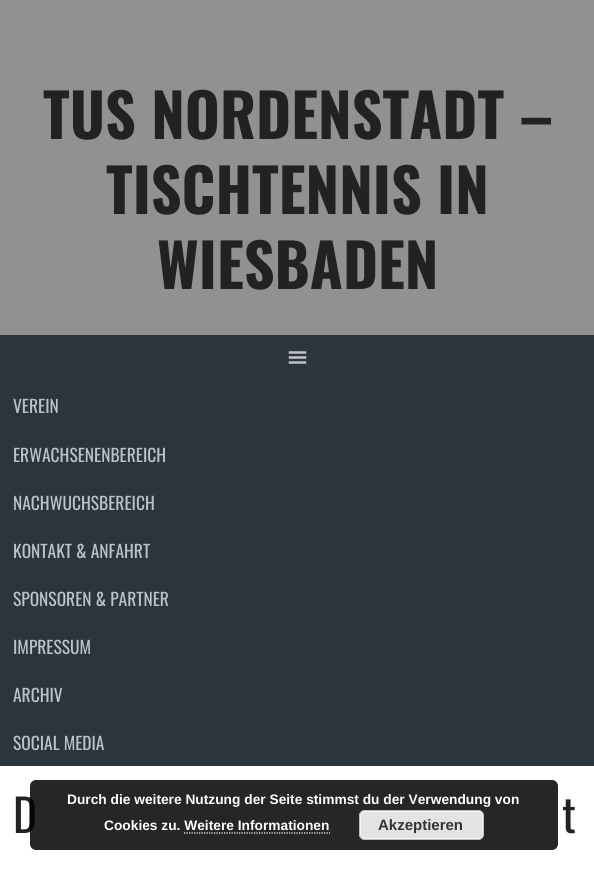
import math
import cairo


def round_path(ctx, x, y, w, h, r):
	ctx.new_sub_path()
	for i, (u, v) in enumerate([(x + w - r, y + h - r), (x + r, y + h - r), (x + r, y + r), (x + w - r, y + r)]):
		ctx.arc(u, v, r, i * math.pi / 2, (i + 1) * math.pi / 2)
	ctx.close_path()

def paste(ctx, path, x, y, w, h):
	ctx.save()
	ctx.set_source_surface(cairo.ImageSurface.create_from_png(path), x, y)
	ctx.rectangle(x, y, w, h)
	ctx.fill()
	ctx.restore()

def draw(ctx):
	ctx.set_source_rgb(0.569, 0.569, 0.569)
	ctx.paint()
	ctx.select_font_face('Oswald', cairo.FONT_SLANT_NORMAL, cairo.FONT_WEIGHT_BOLD)
	ctx.set_font_size(60)
	ctx.set_source_rgb(0.133, 0.133, 0.133)
	for x, y, s in [
		(43, 139, 'TUS NORDENSTADT –'),
		(106, 214, 'TISCHTENNIS IN'),
		(157, 289, 'WIESBADEN'),
	]:
		ctx.move_to(x, y)
		ctx.show_text(s)
	ctx.set_source_rgb(0.169, 0.208, 0.243)
	ctx.rectangle(0, 335, 594, 431)
	ctx.fill()
	paste(ctx, 'media/1.png', 288, 351, 19, 13)
	ctx.select_font_face('Oswald')
	ctx.set_font_size(17.5)
	ctx.set_source_rgb(0.749, 0.761, 0.773)
	for x, y, s in [
		(13, 413, 'VEREIN'),
		(13, 462, 'ERWACHSENENBEREICH'),
		(13, 510, 'NACHWUCHSBEREICH'),
		(13, 558, 'KONTAKT & ANFAHRT'),
		(13, 606, 'SPONSOREN & PARTNER'),
		(13, 654, 'IMPRESSUM'),
		(13, 702, 'ARCHIV'),
		(13, 750, 'SOCIAL MEDIA'),
	]:
		ctx.move_to(x, y)
		ctx.show_text(s)
	ctx.set_source_rgb(1, 1, 1)
	ctx.rectangle(0, 766, 594, 121)
	ctx.fill()
	ctx.set_font_size(45)
	ctx.set_source_rgb(0.133, 0.133, 0.133)
	ctx.move_to(13, 833)
	ctx.show_text('D')
	ctx.move_to(562, 833)
	ctx.show_text('t')
	ctx.set_source_rgba(0, 0, 0, 0.85)
	round_path(ctx, 30, 780, 528, 70, 6)
	ctx.fill()
	ctx.select_font_face('Liberation Sans', cairo.FONT_SLANT_NORMAL, cairo.FONT_WEIGHT_BOLD)
	ctx.set_font_size(13.75)
	ctx.set_source_rgb(1, 1, 1)
	ctx.move_to(67, 804)
	ctx.show_text('Durch die weitere Nutzung der Seite stimmst du der Verwendung von')
	ctx.move_to(104, 830)
	ctx.show_text('Cookies zu. Weitere Informationen')
	ctx.set_source_rgb(0.89, 0.89, 0.89)
	round_path(ctx, 359, 810, 125, 30, 6)
	ctx.fill()
	round_path(ctx, 360.5, 811.5, 122, 27, 4.5)
	ctx.set_source_rgb(0.965, 0.965, 0.965)
	ctx.set_line_width(1)
	ctx.stroke()
	round_path(ctx, 359.5, 810.5, 124, 29, 5.5)
	ctx.set_source_rgb(0.733, 0.733, 0.733)
	ctx.stroke()
	ctx.set_font_size(15)
	ctx.set_source_rgb(0.2, 0.2, 0.2)
	ctx.move_to(378, 830)
	ctx.show_text('Akzeptieren')
	ctx.new_path()
	ctx.move_to(184, 833)
	ctx.line_to(330, 833)
	ctx.set_source_rgb(1, 1, 1)
	ctx.set_line_width(1.2)
	ctx.set_dash([1.25, 1.25])
	ctx.stroke()


surface = cairo.ImageSurface(cairo.FORMAT_RGB24, 594, 887)
ctx = cairo.Context(surface)
options = cairo.FontOptions()
options.set_hint_metrics(cairo.HINT_METRICS_OFF)
options.set_hint_style(cairo.HINT_STYLE_NONE)
ctx.set_font_options(options)
ctx.set_miter_limit(4)
draw(ctx)
surface.write_to_png('image.png')
